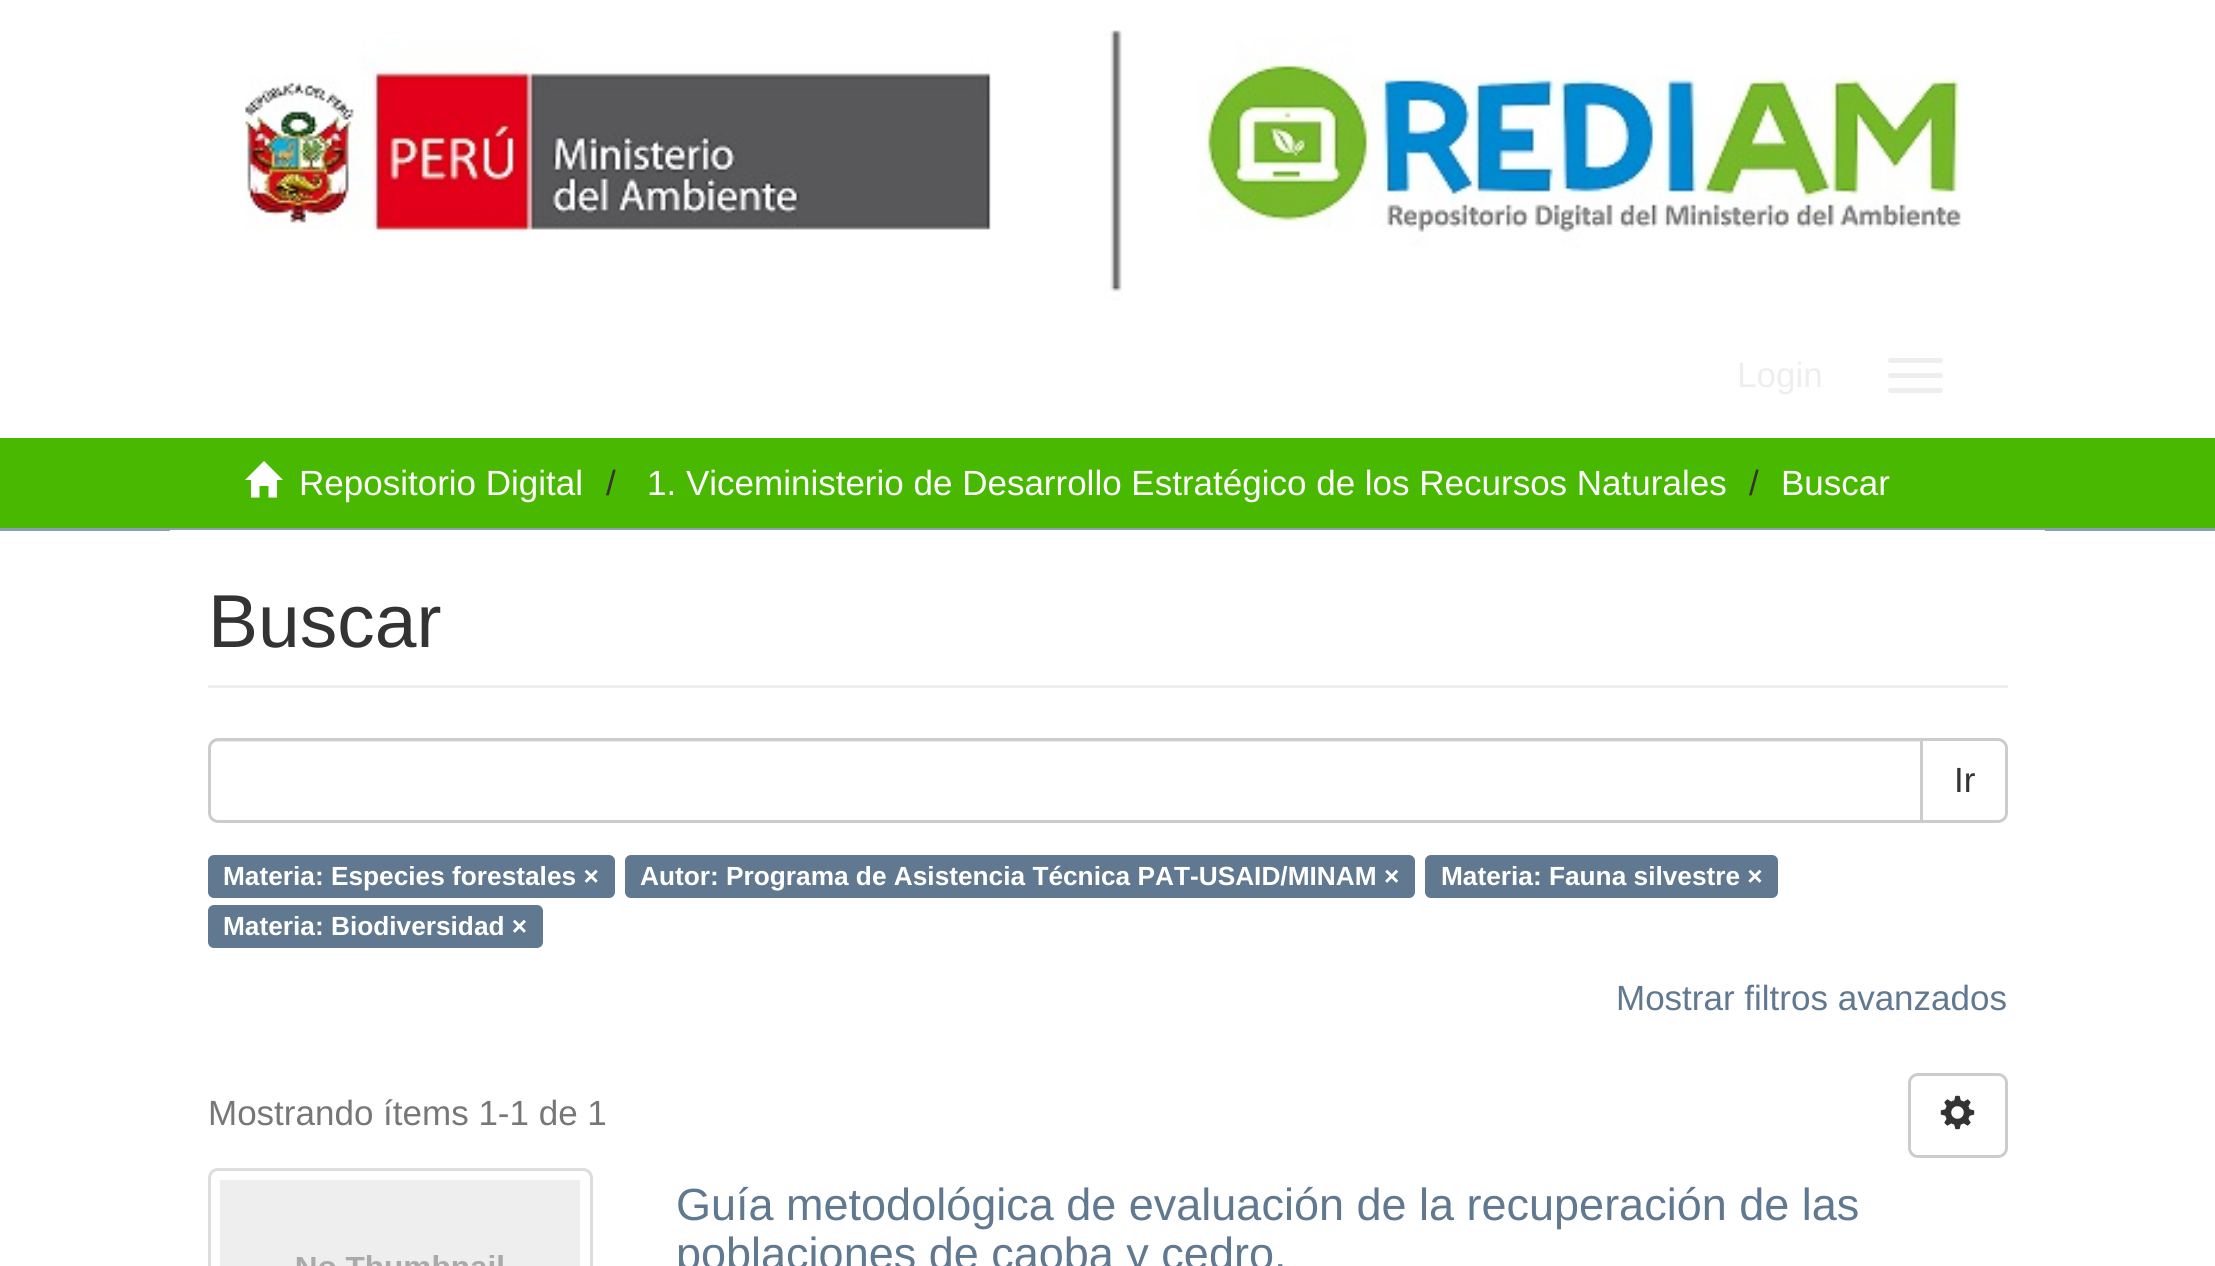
import math
import cairo


def round_path(ctx, x, y, w, h, r):
	ctx.new_sub_path()
	for i, (u, v) in enumerate([(x + w - r, y + h - r), (x + r, y + h - r), (x + r, y + r), (x + w - r, y + r)]):
		ctx.arc(u, v, r, i * math.pi / 2, (i + 1) * math.pi / 2)
	ctx.close_path()

def paste(ctx, path, x, y, w, h):
	ctx.save()
	ctx.set_source_surface(cairo.ImageSurface.create_from_png(path), x, y)
	ctx.rectangle(x, y, w, h)
	ctx.fill()
	ctx.restore()

def draw(ctx):
	ctx.set_source_rgb(1, 1, 1)
	ctx.paint()
	paste(ctx, 'media/1.png', 244, 30, 1718, 270)
	ctx.select_font_face('Liberation Sans')
	ctx.set_font_size(35)
	ctx.set_source_rgb(0.933, 0.933, 0.933)
	ctx.move_to(1737, 387)
	ctx.show_text('Login')
	round_path(ctx, 1888, 358, 55, 5, 2.5)
	ctx.fill()
	round_path(ctx, 1888, 373, 55, 5, 2.5)
	ctx.fill()
	round_path(ctx, 1888, 388, 55, 5, 2.5)
	ctx.fill()
	ctx.set_source_rgb(0.282, 0.722, 0)
	ctx.rectangle(0, 438, 2215, 90)
	ctx.fill()
	ctx.set_source_rgb(0.545, 0.62, 0.698)
	ctx.rectangle(0, 528, 2215, 3)
	ctx.fill()
	ctx.set_source_rgb(1, 1, 1)
	ctx.new_path()
	ctx.move_to(245, 480)
	ctx.line_to(264, 461)
	ctx.line_to(283, 480)
	ctx.line_to(277, 480)
	ctx.line_to(277, 497.5)
	ctx.line_to(268.5, 497.5)
	ctx.line_to(268.5, 486)
	ctx.line_to(259.5, 486)
	ctx.line_to(259.5, 497.5)
	ctx.line_to(251, 497.5)
	ctx.line_to(251, 480)
	ctx.close_path()
	ctx.fill()
	ctx.move_to(299, 495)
	ctx.show_text('Repositorio Digital')
	ctx.set_source_rgb(0.2, 0.2, 0.2)
	ctx.move_to(606, 495)
	ctx.show_text('/')
	ctx.set_source_rgb(1, 1, 1)
	ctx.move_to(647, 495)
	ctx.show_text('1. Viceministerio de Desarrollo Estratégico de los Recursos Naturales')
	ctx.set_source_rgb(0.2, 0.2, 0.2)
	ctx.move_to(1749, 495)
	ctx.show_text('/')
	ctx.set_source_rgb(1, 1, 1)
	ctx.move_to(1781, 495)
	ctx.show_text('Buscar')
	ctx.rectangle(170, 530, 1875, 1)
	ctx.fill()
	ctx.set_source_rgb(0.933, 0.933, 0.933)
	ctx.rectangle(208, 685, 1800, 3)
	ctx.fill()
	ctx.set_font_size(75)
	ctx.set_source_rgb(0.2, 0.2, 0.2)
	ctx.move_to(208, 647)
	ctx.show_text('Buscar')
	ctx.new_path()
	ctx.move_to(1921.5, 739.5)
	ctx.line_to(1998, 739.5)
	ctx.curve_to(2002.5, 739.5, 2006.5, 743.5, 2006.5, 748)
	ctx.line_to(2006.5, 813)
	ctx.curve_to(2006.5, 817.5, 2002.5, 821.5, 1998, 821.5)
	ctx.line_to(1921.5, 821.5)
	ctx.close_path()
	ctx.set_source_rgb(0.8, 0.8, 0.8)
	ctx.set_line_width(3)
	ctx.stroke()
	ctx.set_source_rgb(1, 1, 1)
	ctx.new_path()
	ctx.move_to(218, 738)
	ctx.line_to(1923, 738)
	ctx.line_to(1923, 823)
	ctx.line_to(218, 823)
	ctx.curve_to(212.5, 823, 208, 818.5, 208, 813)
	ctx.line_to(208, 748)
	ctx.curve_to(208, 742.5, 212.5, 738, 218, 738)
	ctx.close_path()
	ctx.fill()
	ctx.set_source_rgb(0.925, 0.925, 0.925)
	ctx.new_path()
	ctx.move_to(218, 742)
	ctx.line_to(1920, 742)
	ctx.line_to(1920, 740)
	ctx.line_to(218, 740)
	ctx.curve_to(212, 740, 210, 745, 210, 750)
	ctx.curve_to(210, 746, 213, 742, 218, 742)
	ctx.close_path()
	ctx.fill()
	ctx.new_path()
	ctx.move_to(218, 739.5)
	ctx.line_to(1921.5, 739.5)
	ctx.line_to(1921.5, 821.5)
	ctx.line_to(218, 821.5)
	ctx.curve_to(213.5, 821.5, 209.5, 817.5, 209.5, 813)
	ctx.line_to(209.5, 748)
	ctx.curve_to(209.5, 743.5, 213.5, 739.5, 218, 739.5)
	ctx.close_path()
	ctx.set_source_rgb(0.8, 0.8, 0.8)
	ctx.stroke()
	ctx.set_font_size(35)
	ctx.set_source_rgb(0.2, 0.2, 0.2)
	ctx.move_to(1954, 792)
	ctx.show_text('Ir')
	ctx.set_source_rgb(0.376, 0.471, 0.565)
	round_path(ctx, 208, 855, 407, 43, 6)
	ctx.fill()
	ctx.select_font_face('Liberation Sans', cairo.FONT_SLANT_NORMAL, cairo.FONT_WEIGHT_BOLD)
	ctx.set_font_size(26.25)
	ctx.set_source_rgb(1, 1, 1)
	ctx.move_to(223, 885)
	ctx.show_text('Materia: Especies forestales ×')
	ctx.set_source_rgb(0.376, 0.471, 0.565)
	round_path(ctx, 625, 855, 790, 43, 6)
	ctx.fill()
	ctx.set_source_rgb(1, 1, 1)
	ctx.move_to(640, 885)
	ctx.show_text('Autor: Programa de Asistencia Técnica PAT-USAID/MINAM ×')
	ctx.set_source_rgb(0.376, 0.471, 0.565)
	round_path(ctx, 1425, 855, 353, 43, 6)
	ctx.fill()
	ctx.set_source_rgb(1, 1, 1)
	ctx.move_to(1441, 885)
	ctx.show_text('Materia: Fauna silvestre ×')
	ctx.set_source_rgb(0.376, 0.471, 0.565)
	round_path(ctx, 208, 905, 335, 43, 6)
	ctx.fill()
	ctx.set_source_rgb(1, 1, 1)
	ctx.move_to(223, 935)
	ctx.show_text('Materia: Biodiversidad ×')
	ctx.select_font_face('Liberation Sans')
	ctx.set_font_size(35)
	ctx.set_source_rgb(0.376, 0.471, 0.565)
	ctx.move_to(1616, 1010)
	ctx.show_text('Mostrar filtros avanzados')
	ctx.set_source_rgb(0.467, 0.467, 0.467)
	ctx.move_to(208, 1125)
	ctx.show_text('Mostrando ítems 1-1 de 1')
	round_path(ctx, 1909.5, 1074.5, 97, 82, 8.5)
	ctx.set_source_rgb(0.8, 0.8, 0.8)
	ctx.stroke()
	paste(ctx, 'media/2.png', 1940, 1095, 35, 35)
	round_path(ctx, 209.5, 1169.5, 382, 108, 8.5)
	ctx.set_source_rgb(0.867, 0.867, 0.867)
	ctx.stroke()
	paste(ctx, 'media/3.png', 220, 1180, 360, 86)
	ctx.set_font_size(45)
	ctx.set_source_rgb(0.376, 0.471, 0.565)
	ctx.move_to(676, 1220)
	ctx.show_text('Guía metodológica de evaluación de la recuperación de las')
	ctx.move_to(676, 1269)
	ctx.show_text('poblaciones de caoba y cedro.')


surface = cairo.ImageSurface(cairo.FORMAT_RGB24, 2215, 1266)
ctx = cairo.Context(surface)
options = cairo.FontOptions()
options.set_hint_metrics(cairo.HINT_METRICS_OFF)
options.set_hint_style(cairo.HINT_STYLE_NONE)
ctx.set_font_options(options)
ctx.set_miter_limit(4)
draw(ctx)
surface.write_to_png('image.png')
